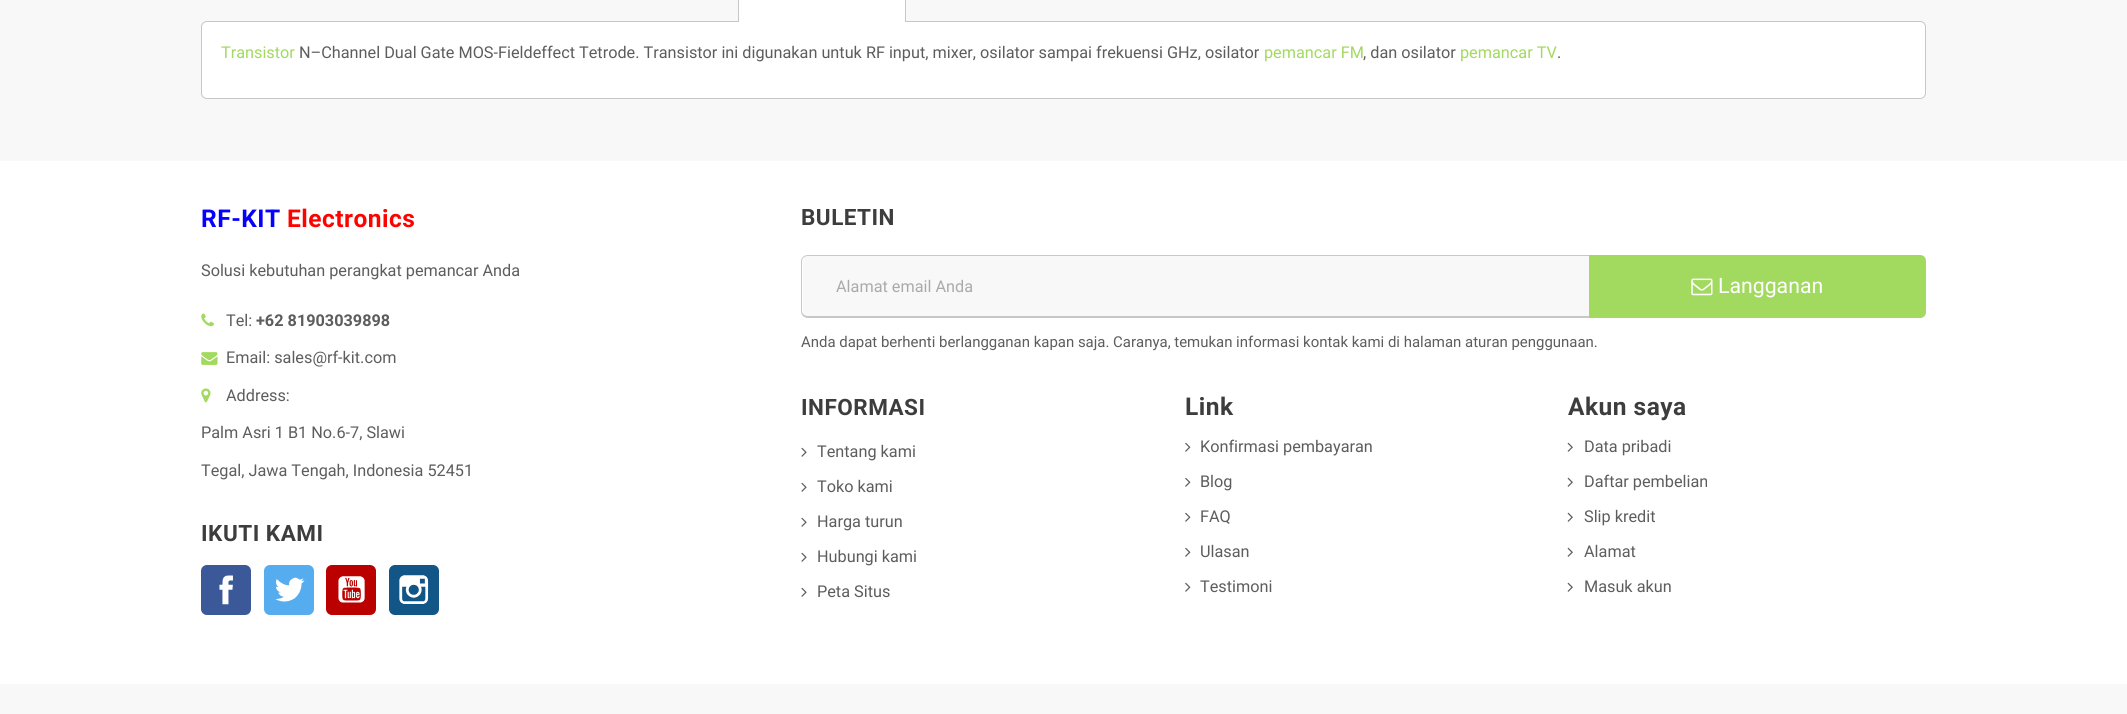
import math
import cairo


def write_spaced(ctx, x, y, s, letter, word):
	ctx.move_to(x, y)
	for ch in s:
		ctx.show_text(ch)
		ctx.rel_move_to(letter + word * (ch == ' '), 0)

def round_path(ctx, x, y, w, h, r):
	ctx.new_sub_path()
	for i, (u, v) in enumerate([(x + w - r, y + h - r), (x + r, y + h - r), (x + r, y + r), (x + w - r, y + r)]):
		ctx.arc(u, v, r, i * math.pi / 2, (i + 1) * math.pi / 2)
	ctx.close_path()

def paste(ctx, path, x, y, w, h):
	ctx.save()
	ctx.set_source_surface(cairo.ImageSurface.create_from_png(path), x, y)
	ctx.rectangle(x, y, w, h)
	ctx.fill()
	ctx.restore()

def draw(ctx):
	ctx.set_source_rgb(1, 1, 1)
	ctx.paint()
	ctx.set_source_rgb(0.969, 0.969, 0.969)
	ctx.rectangle(0, 0, 2127, 161)
	ctx.fill()
	ctx.set_source_rgb(1, 1, 1)
	round_path(ctx, 201.5, 21.5, 1724, 77, 5.5)
	ctx.fill_preserve()
	ctx.set_source_rgb(0.78, 0.78, 0.78)
	ctx.set_line_width(1)
	ctx.stroke()
	ctx.set_source_rgb(1, 1, 1)
	ctx.rectangle(738, 0, 168, 22)
	ctx.fill()
	ctx.set_source_rgb(0.78, 0.78, 0.78)
	ctx.set_fill_rule(cairo.FILL_RULE_EVEN_ODD)
	ctx.new_path()
	ctx.move_to(744, -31)
	ctx.line_to(900, -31)
	ctx.curve_to(903, -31, 906, -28, 906, -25)
	ctx.line_to(906, 22)
	ctx.line_to(738, 22)
	ctx.line_to(738, -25)
	ctx.curve_to(738, -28, 740, -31, 744, -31)
	ctx.close_path()
	ctx.move_to(744, -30)
	ctx.line_to(900, -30)
	ctx.curve_to(903, -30, 905, -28, 905, -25)
	ctx.line_to(905, 22)
	ctx.line_to(739, 22)
	ctx.line_to(739, -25)
	ctx.curve_to(739, -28, 741, -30, 744, -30)
	ctx.close_path()
	ctx.fill()
	ctx.select_font_face('Roboto')
	ctx.set_font_size(16.25)
	ctx.set_source_rgb(0.635, 0.851, 0.373)
	ctx.move_to(221, 58)
	ctx.show_text('Transistor')
	ctx.set_source_rgb(0.365, 0.365, 0.365)
	ctx.move_to(299, 58)
	ctx.show_text('N–Channel Dual Gate MOS-Fieldeffect Tetrode. Transistor ini digunakan untuk RF input, mixer, osilator sampai frekuensi GHz, osilator')
	ctx.set_source_rgb(0.635, 0.851, 0.373)
	ctx.move_to(1264, 58)
	ctx.show_text('pemancar FM')
	ctx.set_source_rgb(0.365, 0.365, 0.365)
	ctx.move_to(1363, 58)
	ctx.show_text(', dan osilator')
	ctx.set_source_rgb(0.635, 0.851, 0.373)
	ctx.move_to(1460, 58)
	ctx.show_text('pemancar TV')
	ctx.set_source_rgb(0.365, 0.365, 0.365)
	ctx.move_to(1557, 58)
	ctx.show_text('.')
	ctx.select_font_face('Roboto', cairo.FONT_SLANT_NORMAL, cairo.FONT_WEIGHT_BOLD)
	ctx.set_font_size(24.5)
	ctx.set_source_rgb(0.027, 0, 1)
	write_spaced(ctx, 201, 227, 'RF-KIT', 0.5, 0)
	ctx.set_source_rgb(1, 0.008, 0)
	write_spaced(ctx, 287, 227, 'Electronics', 0.5, 0)
	ctx.select_font_face('Roboto')
	ctx.set_font_size(16.25)
	ctx.set_source_rgb(0.365, 0.365, 0.365)
	ctx.move_to(201, 276)
	ctx.show_text('Solusi kebutuhan perangkat pemancar Anda')
	paste(ctx, 'media/1.png', 201, 313, 13, 14)
	ctx.move_to(226, 326)
	ctx.show_text('Tel:')
	ctx.select_font_face('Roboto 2', cairo.FONT_SLANT_NORMAL, cairo.FONT_WEIGHT_BOLD)
	ctx.move_to(256, 326)
	ctx.show_text('+62 81903039898')
	paste(ctx, 'media/2.png', 201, 352, 17, 13)
	ctx.select_font_face('Roboto')
	ctx.move_to(226, 363)
	ctx.show_text('Email: sales@rf-kit.com')
	paste(ctx, 'media/3.png', 201, 388, 10, 15)
	for x, y, s in [
		(226, 401, 'Address:'),
		(201, 438, 'Palm Asri 1 B1 No.6-7, Slawi'),
		(201, 476, 'Tegal, Jawa Tengah, Indonesia 52451'),
	]:
		ctx.move_to(x, y)
		ctx.show_text(s)
	ctx.select_font_face('Roboto', cairo.FONT_SLANT_NORMAL, cairo.FONT_WEIGHT_BOLD)
	ctx.set_font_size(22.5)
	ctx.set_source_rgb(0.239, 0.239, 0.239)
	write_spaced(ctx, 201, 541, 'IKUTI KAMI', 0.5, 0)
	ctx.set_source_rgb(0.231, 0.349, 0.596)
	round_path(ctx, 201, 565, 50, 50, 6)
	ctx.fill()
	paste(ctx, 'media/4.png', 219, 575, 14, 30)
	ctx.set_source_rgb(0.333, 0.675, 0.933)
	round_path(ctx, 264, 565, 50, 50, 6)
	ctx.fill()
	paste(ctx, 'media/5.png', 275, 577, 30, 25)
	ctx.set_source_rgb(0.733, 0, 0)
	round_path(ctx, 326, 565, 50, 50, 6)
	ctx.fill()
	paste(ctx, 'media/6.png', 338, 576, 27, 27)
	ctx.set_source_rgb(0.071, 0.337, 0.533)
	round_path(ctx, 389, 565, 50, 50, 6)
	ctx.fill()
	paste(ctx, 'media/7.png', 399, 575, 30, 29)
	ctx.set_source_rgb(0.239, 0.239, 0.239)
	write_spaced(ctx, 801, 225, 'BULETIN', 0.5, 0)
	ctx.set_source_rgb(0.969, 0.969, 0.969)
	ctx.new_path()
	ctx.move_to(808, 256)
	ctx.line_to(1589, 256)
	ctx.line_to(1589, 316)
	ctx.line_to(808, 316)
	ctx.curve_to(805, 316, 803, 314, 803, 311)
	ctx.line_to(803, 261)
	ctx.curve_to(803, 258, 805, 256, 808, 256)
	ctx.close_path()
	ctx.fill()
	ctx.set_source_rgb(0.78, 0.78, 0.78)
	ctx.new_path()
	ctx.move_to(808, 255)
	ctx.line_to(1589, 255)
	ctx.line_to(1589, 318)
	ctx.line_to(808, 318)
	ctx.curve_to(804, 318, 801, 315, 801, 311)
	ctx.line_to(801, 261)
	ctx.curve_to(801, 258, 804, 255, 808, 255)
	ctx.close_path()
	ctx.move_to(808, 256)
	ctx.line_to(1589, 256)
	ctx.line_to(1589, 316)
	ctx.line_to(808, 316)
	ctx.curve_to(805, 316, 802, 314, 802, 311)
	ctx.line_to(802, 261)
	ctx.curve_to(802, 258, 805, 256, 808, 256)
	ctx.close_path()
	ctx.fill()
	ctx.select_font_face('Roboto')
	ctx.set_font_size(16.25)
	ctx.set_source_rgb(0.667, 0.667, 0.667)
	ctx.move_to(836, 292)
	ctx.show_text('Alamat email Anda')
	ctx.set_source_rgb(0.635, 0.851, 0.373)
	ctx.new_path()
	ctx.move_to(1589, 255)
	ctx.line_to(1920, 255)
	ctx.curve_to(1923.5, 255, 1926, 257.5, 1926, 261)
	ctx.line_to(1926, 312)
	ctx.curve_to(1926, 315.5, 1923.5, 318, 1920, 318)
	ctx.line_to(1589, 318)
	ctx.close_path()
	ctx.fill()
	paste(ctx, 'media/8.png', 1691, 278, 22, 18)
	ctx.set_font_size(21.25)
	ctx.set_source_rgb(1, 1, 1)
	ctx.move_to(1718, 293)
	ctx.show_text('Langganan')
	ctx.set_font_size(14.95)
	ctx.set_source_rgb(0.365, 0.365, 0.365)
	ctx.move_to(801, 347)
	ctx.show_text('Anda dapat berhenti berlangganan kapan saja. Caranya, temukan informasi kontak kami di halaman aturan penggunaan.')
	ctx.select_font_face('Roboto', cairo.FONT_SLANT_NORMAL, cairo.FONT_WEIGHT_BOLD)
	ctx.set_font_size(22.5)
	ctx.set_source_rgb(0.239, 0.239, 0.239)
	write_spaced(ctx, 801, 415, 'INFORMASI', 0.5, 0)
	paste(ctx, 'media/9.png', 801, 447, 6, 10)
	ctx.select_font_face('Roboto')
	ctx.set_font_size(16.25)
	ctx.set_source_rgb(0.365, 0.365, 0.365)
	ctx.move_to(817, 457)
	ctx.show_text('Tentang kami')
	paste(ctx, 'media/9.png', 801, 482, 6, 10)
	ctx.move_to(817, 492)
	ctx.show_text('Toko kami')
	paste(ctx, 'media/9.png', 801, 517, 6, 10)
	ctx.move_to(817, 527)
	ctx.show_text('Harga turun')
	paste(ctx, 'media/9.png', 801, 552, 6, 10)
	ctx.move_to(817, 562)
	ctx.show_text('Hubungi kami')
	paste(ctx, 'media/9.png', 801, 587, 6, 10)
	ctx.move_to(817, 597)
	ctx.show_text('Peta Situs')
	ctx.select_font_face('Roboto', cairo.FONT_SLANT_NORMAL, cairo.FONT_WEIGHT_BOLD)
	ctx.set_font_size(24.5)
	ctx.set_source_rgb(0.239, 0.239, 0.239)
	write_spaced(ctx, 1185, 415, 'Link', 0.5, 0)
	paste(ctx, 'media/10.png', 1185, 442, 6, 10)
	ctx.select_font_face('Roboto')
	ctx.set_font_size(16.25)
	ctx.set_source_rgb(0.365, 0.365, 0.365)
	ctx.move_to(1200, 452)
	ctx.show_text('Konfirmasi pembayaran')
	paste(ctx, 'media/10.png', 1185, 477, 6, 10)
	ctx.move_to(1200, 487)
	ctx.show_text('Blog')
	paste(ctx, 'media/10.png', 1185, 512, 6, 10)
	ctx.move_to(1200, 522)
	ctx.show_text('FAQ')
	paste(ctx, 'media/10.png', 1185, 547, 6, 10)
	ctx.move_to(1200, 557)
	ctx.show_text('Ulasan')
	paste(ctx, 'media/10.png', 1185, 582, 6, 10)
	ctx.move_to(1200, 592)
	ctx.show_text('Testimoni')
	ctx.select_font_face('Roboto', cairo.FONT_SLANT_NORMAL, cairo.FONT_WEIGHT_BOLD)
	ctx.set_font_size(24.5)
	ctx.set_source_rgb(0.239, 0.239, 0.239)
	write_spaced(ctx, 1568, 415, 'Akun saya', 0.5, 0)
	paste(ctx, 'media/11.png', 1567, 442, 6, 10)
	ctx.select_font_face('Roboto')
	ctx.set_font_size(16.25)
	ctx.set_source_rgb(0.365, 0.365, 0.365)
	ctx.move_to(1584, 452)
	ctx.show_text('Data pribadi')
	paste(ctx, 'media/11.png', 1567, 477, 6, 10)
	ctx.move_to(1584, 487)
	ctx.show_text('Daftar pembelian')
	paste(ctx, 'media/11.png', 1567, 512, 6, 10)
	ctx.move_to(1584, 522)
	ctx.show_text('Slip kredit')
	paste(ctx, 'media/11.png', 1567, 547, 6, 10)
	ctx.move_to(1584, 557)
	ctx.show_text('Alamat')
	paste(ctx, 'media/11.png', 1567, 582, 6, 10)
	ctx.move_to(1584, 592)
	ctx.show_text('Masuk akun')
	ctx.set_source_rgb(0.969, 0.969, 0.969)
	ctx.rectangle(0, 684, 2127, 30)
	ctx.fill()


surface = cairo.ImageSurface(cairo.FORMAT_RGB24, 2127, 714)
ctx = cairo.Context(surface)
options = cairo.FontOptions()
options.set_hint_metrics(cairo.HINT_METRICS_OFF)
options.set_hint_style(cairo.HINT_STYLE_NONE)
ctx.set_font_options(options)
ctx.set_miter_limit(4)
draw(ctx)
surface.write_to_png('image.png')
